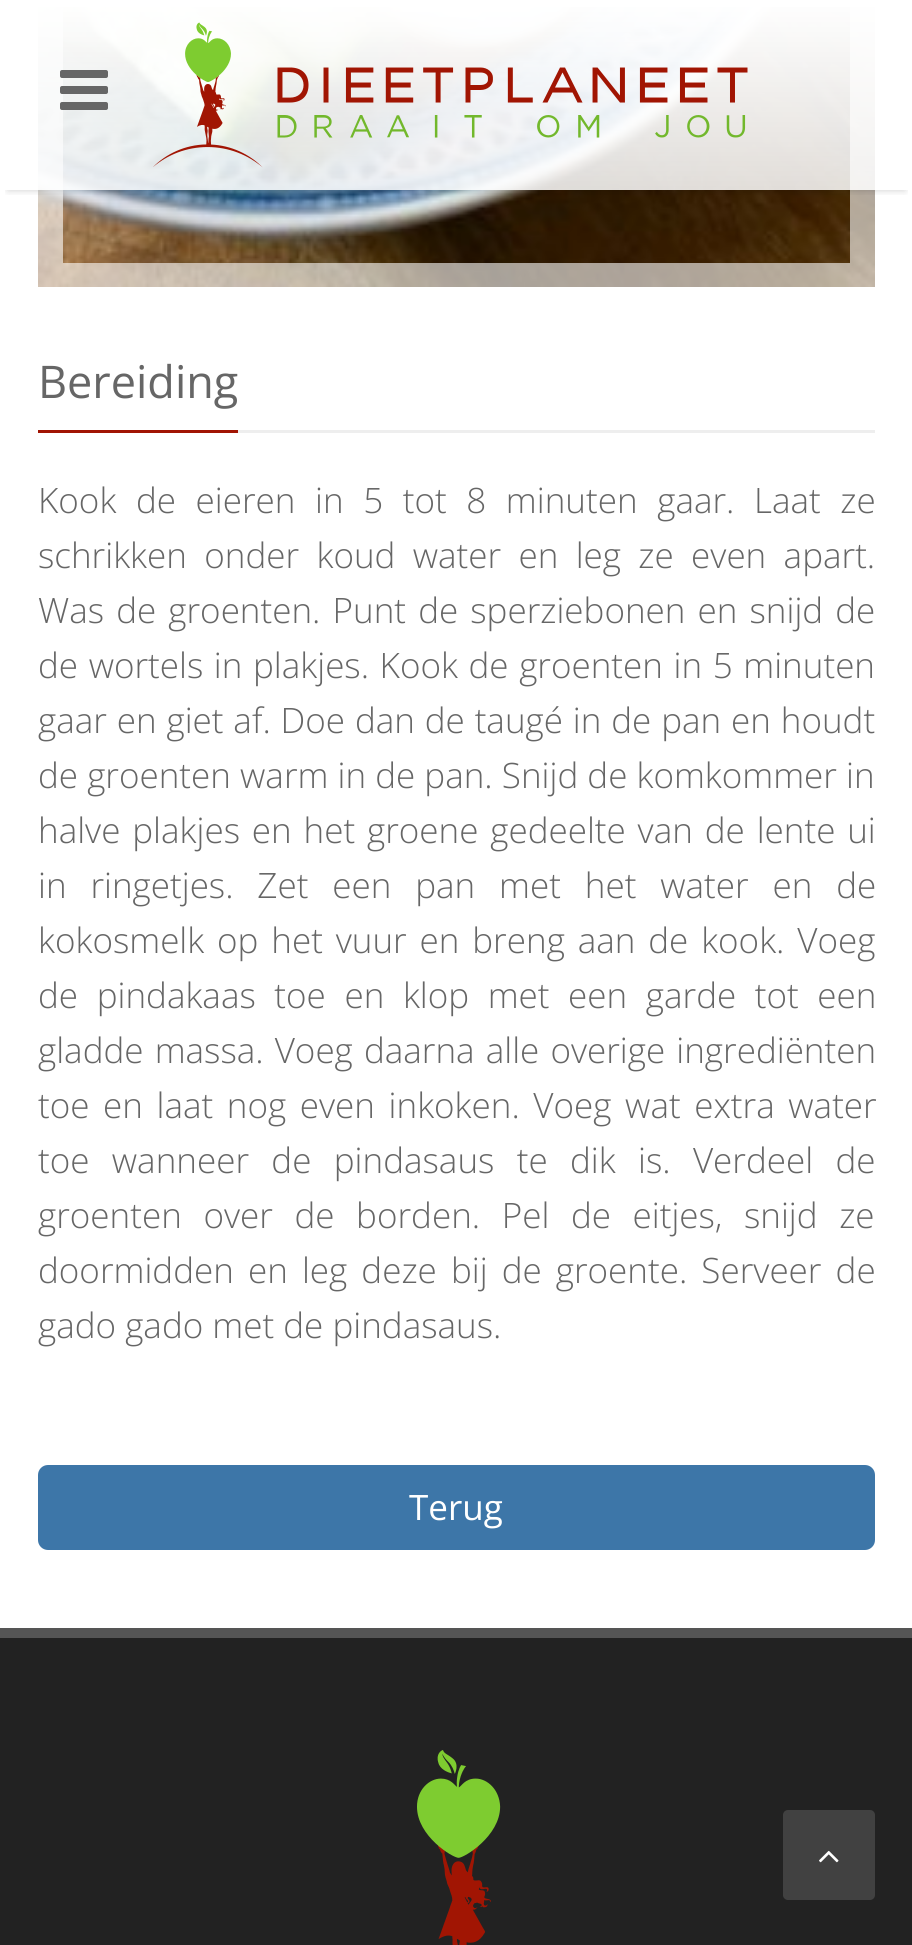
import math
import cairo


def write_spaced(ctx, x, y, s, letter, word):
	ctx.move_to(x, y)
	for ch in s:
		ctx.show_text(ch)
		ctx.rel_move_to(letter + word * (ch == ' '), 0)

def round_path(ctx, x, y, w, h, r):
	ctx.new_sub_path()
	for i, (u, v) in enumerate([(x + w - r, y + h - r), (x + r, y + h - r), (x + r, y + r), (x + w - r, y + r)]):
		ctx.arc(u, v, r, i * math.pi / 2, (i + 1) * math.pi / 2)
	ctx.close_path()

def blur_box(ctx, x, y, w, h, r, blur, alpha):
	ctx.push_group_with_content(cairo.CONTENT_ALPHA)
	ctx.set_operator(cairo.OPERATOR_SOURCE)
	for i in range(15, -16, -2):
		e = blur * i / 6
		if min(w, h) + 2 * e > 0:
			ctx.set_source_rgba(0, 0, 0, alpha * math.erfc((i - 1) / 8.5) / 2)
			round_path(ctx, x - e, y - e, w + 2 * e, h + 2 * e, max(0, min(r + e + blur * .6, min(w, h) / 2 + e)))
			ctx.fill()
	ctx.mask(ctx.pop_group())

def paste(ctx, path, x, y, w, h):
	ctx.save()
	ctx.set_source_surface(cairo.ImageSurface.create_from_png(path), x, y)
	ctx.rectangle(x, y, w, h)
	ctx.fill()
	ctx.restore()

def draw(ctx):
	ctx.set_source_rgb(1, 1, 1)
	ctx.paint()
	paste(ctx, 'media/3.png', 38, 7, 837, 280)
	ctx.rectangle(50.5, -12.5, 812, 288)
	ctx.set_source_rgba(1, 1, 1, 0.6)
	ctx.set_line_width(25)
	ctx.stroke()
	ctx.save()
	ctx.rectangle(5, 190, 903, 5)
	ctx.clip()
	ctx.set_source_rgb(0, 0, 0)
	blur_box(ctx, 8, 15, 897, 175, 0, 4, 0.2)
	ctx.restore()
	gradient = cairo.LinearGradient(456, 0, 456, 190)
	gradient.add_color_stop_rgba(0, 1, 1, 1, 1)
	gradient.add_color_stop_rgba(1, 1, 1, 1, 0.85)
	ctx.set_source(gradient)
	ctx.rectangle(38, 7, 837, 183)
	ctx.fill()
	paste(ctx, 'media/1.png', 60, 70, 48, 40)
	paste(ctx, 'media/2.png', 153, 22, 595, 146)
	ctx.set_source_rgb(0.933, 0.933, 0.933)
	ctx.rectangle(238, 430, 637, 3)
	ctx.fill()
	ctx.set_source_rgb(0.631, 0.082, 0.012)
	ctx.rectangle(38, 430, 200, 3)
	ctx.fill()
	ctx.select_font_face('Open Sans')
	ctx.set_font_size(45)
	ctx.set_source_rgb(0.4, 0.4, 0.4)
	ctx.move_to(38, 398)
	ctx.show_text('Bereiding')
	ctx.select_font_face('Open Sans Light')
	ctx.set_font_size(35)
	write_spaced(ctx, 38, 513, 'Kook de eieren in 5 tot 8 minuten gaar. Laat ze', 0, 10.5)
	write_spaced(ctx, 38, 568, 'schrikken onder koud water en leg ze even apart.', 0, 8.25)
	write_spaced(ctx, 38, 623, 'Was de groenten. Punt de sperziebonen en snijd de', 0, 3)
	write_spaced(ctx, 38, 678, 'de wortels in plakjes. Kook de groenten in 5 minuten', 0, 1.5)
	write_spaced(ctx, 38, 733, 'gaar en giet af. Doe dan de taugé in de pan en houdt', 0, 0.75)
	ctx.move_to(38, 788)
	ctx.show_text('de groenten warm in de pan. Snijd de komkommer in')
	write_spaced(ctx, 38, 843, 'halve plakjes en het groene gedeelte van de lente ui', 0, 2.75)
	write_spaced(ctx, 38, 898, 'in ringetjes. Zet een pan met het water en de', 0, 14.75)
	write_spaced(ctx, 38, 953, 'kokosmelk op het vuur en breng aan de kook. Voeg', 0, 3.75)
	write_spaced(ctx, 38, 1008, 'de pindakaas toe en klop met een garde tot een', 0, 9.5)
	write_spaced(ctx, 38, 1063, 'gladde massa. Voeg daarna alle overige ingrediënten', 0, 2)
	write_spaced(ctx, 38, 1118, 'toe en laat nog even inkoken. Voeg wat extra water', 0, 4.5)
	write_spaced(ctx, 38, 1173, 'toe wanneer de pindasaus te dik is. Verdeel de', 0, 13.25)
	write_spaced(ctx, 38, 1228, 'groenten over de borden. Pel de eitjes, snijd ze', 0, 12.5)
	write_spaced(ctx, 38, 1283, 'doormidden en leg deze bij de groente. Serveer de', 0, 5)
	ctx.move_to(38, 1338)
	ctx.show_text('gado gado met de pindasaus.')
	ctx.set_source_rgb(0.239, 0.463, 0.659)
	round_path(ctx, 38, 1465, 837, 85, 10)
	ctx.fill()
	ctx.select_font_face('Open Sans')
	ctx.set_source_rgb(1, 1, 1)
	ctx.move_to(409, 1520)
	ctx.show_text('Terug')
	ctx.set_source_rgb(0.133, 0.133, 0.133)
	ctx.rectangle(0, 1638, 912, 307)
	ctx.fill()
	ctx.set_source_rgb(0.333, 0.333, 0.333)
	ctx.rectangle(0, 1628, 912, 10)
	ctx.fill()
	paste(ctx, 'media/4.png', 417, 1750, 84, 195)
	ctx.set_source_rgb(0.255, 0.255, 0.255)
	round_path(ctx, 783, 1810, 92, 90, 5)
	ctx.fill()
	paste(ctx, 'media/5.png', 819, 1850, 20, 13)


surface = cairo.ImageSurface(cairo.FORMAT_RGB24, 912, 1945)
ctx = cairo.Context(surface)
options = cairo.FontOptions()
options.set_hint_metrics(cairo.HINT_METRICS_OFF)
options.set_hint_style(cairo.HINT_STYLE_NONE)
ctx.set_font_options(options)
ctx.set_miter_limit(4)
draw(ctx)
surface.write_to_png('image.png')
